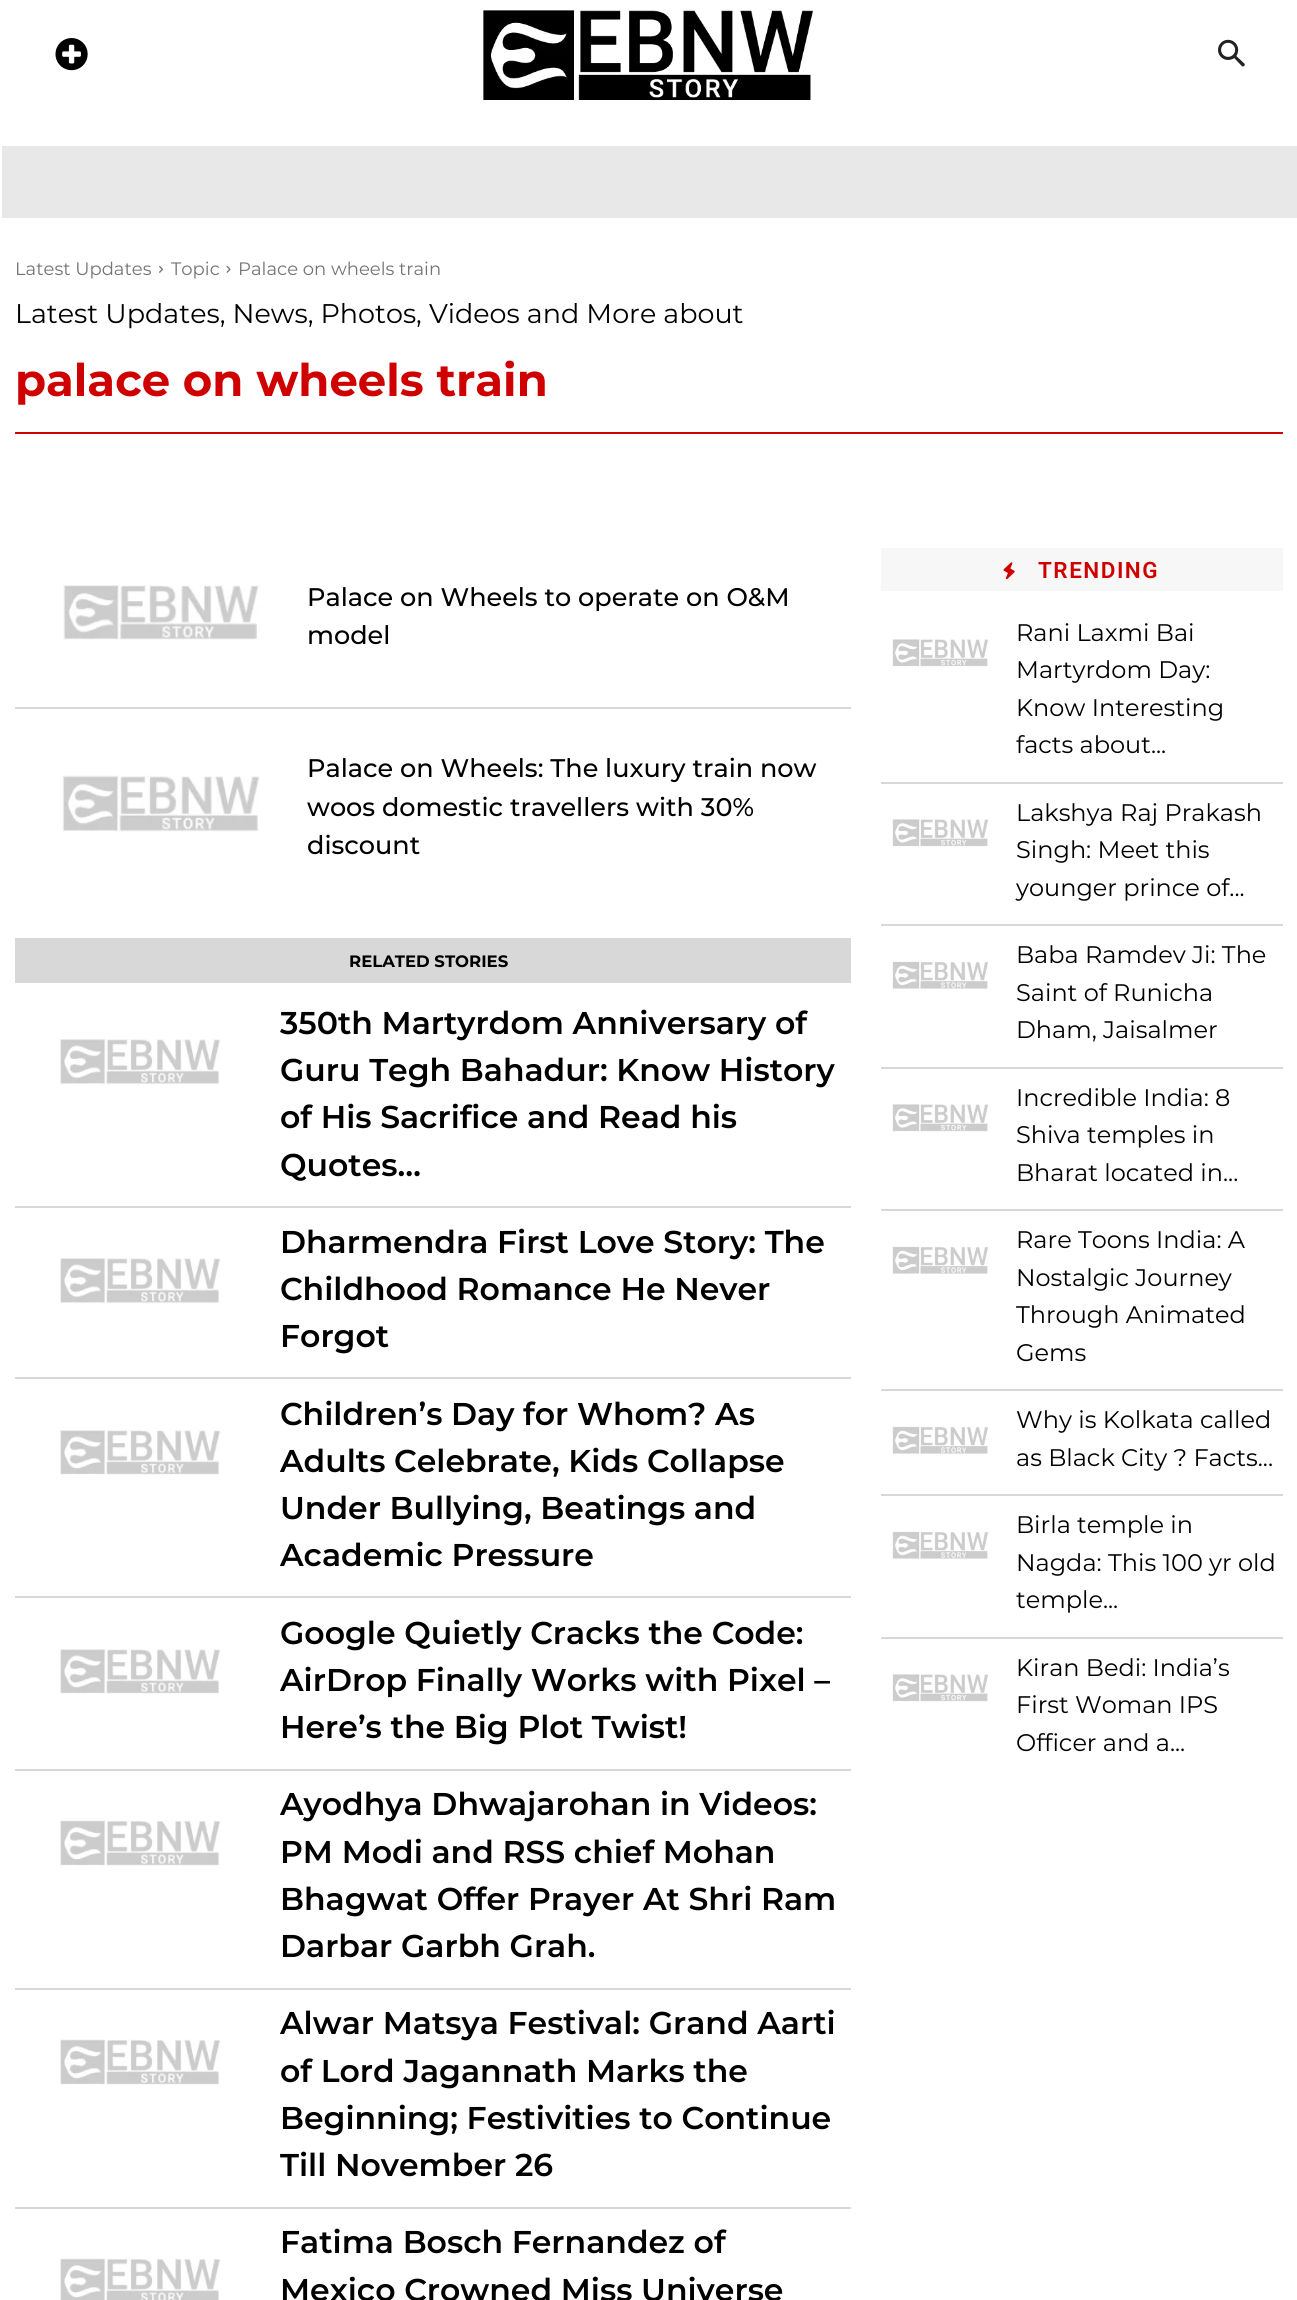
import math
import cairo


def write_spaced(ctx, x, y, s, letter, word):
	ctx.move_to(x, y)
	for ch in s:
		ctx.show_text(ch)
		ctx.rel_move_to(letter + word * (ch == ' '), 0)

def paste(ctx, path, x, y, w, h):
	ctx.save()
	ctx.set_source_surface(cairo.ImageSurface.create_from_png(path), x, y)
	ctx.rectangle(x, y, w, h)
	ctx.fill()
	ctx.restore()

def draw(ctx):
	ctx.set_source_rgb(1, 1, 1)
	ctx.paint()
	paste(ctx, 'media/1.png', 55, 38, 33, 33)
	paste(ctx, 'media/2.png', 483, 10, 330, 90)
	paste(ctx, 'media/3.png', 1218, 39, 27, 28)
	ctx.set_source_rgb(0.91, 0.91, 0.91)
	ctx.rectangle(2, 146, 1295, 72)
	ctx.fill()
	ctx.select_font_face('Montserrat')
	ctx.set_font_size(18)
	ctx.set_source_rgb(0.455, 0.455, 0.455)
	ctx.move_to(15, 275)
	ctx.show_text('Latest Updates')
	paste(ctx, 'media/4.png', 159, 265, 4, 8)
	ctx.move_to(171, 275)
	ctx.show_text('Topic')
	paste(ctx, 'media/5.png', 226, 265, 5, 8)
	ctx.move_to(238, 275)
	ctx.show_text('Palace on wheels train')
	ctx.set_font_size(27)
	ctx.set_source_rgb(0, 0, 0)
	ctx.move_to(15, 323)
	ctx.show_text('Latest Updates, News, Photos, Videos and More about')
	ctx.select_font_face('Montserrat', cairo.FONT_SLANT_NORMAL, cairo.FONT_WEIGHT_BOLD)
	ctx.set_font_size(45)
	ctx.set_source_rgb(0.808, 0, 0)
	ctx.move_to(15, 396)
	ctx.show_text('palace on wheels train')
	ctx.rectangle(15, 432, 1268, 2)
	ctx.fill()
	paste(ctx, 'media/6.png', 63, 585, 198, 55)
	ctx.select_font_face('Montserrat Medium')
	ctx.set_font_size(25.5)
	ctx.set_source_rgb(0, 0, 0)
	ctx.move_to(307, 606)
	ctx.show_text('Palace on Wheels to operate on O&M')
	ctx.move_to(307, 644)
	ctx.show_text('model')
	ctx.set_source_rgb(0.847, 0.847, 0.847)
	ctx.rectangle(15, 707, 836, 2)
	ctx.fill()
	paste(ctx, 'media/7.png', 62, 775, 198, 57)
	ctx.set_source_rgb(0, 0, 0)
	for x, y, s in [
		(307, 777, 'Palace on Wheels: The luxury train now'),
		(307, 816, 'woos domestic travellers with 30%'),
		(307, 854, 'discount'),
	]:
		ctx.move_to(x, y)
		ctx.show_text(s)
	ctx.set_source_rgb(0.847, 0.847, 0.847)
	ctx.rectangle(15, 938, 836, 45)
	ctx.fill()
	ctx.select_font_face('Montserrat', cairo.FONT_SLANT_NORMAL, cairo.FONT_WEIGHT_BOLD)
	ctx.set_font_size(16.5)
	ctx.set_source_rgb(0, 0, 0)
	ctx.move_to(349, 967)
	ctx.show_text('RELATED STORIES')
	paste(ctx, 'media/8.png', 60, 1039, 161, 46)
	ctx.select_font_face('Montserrat SemiBold')
	ctx.set_font_size(31.5)
	for x, y, s in [
		(280, 1034, '350th Martyrdom Anniversary of'),
		(280, 1081, 'Guru Tegh Bahadur: Know History'),
		(280, 1128, 'of His Sacrifice and Read his'),
		(280, 1176, 'Quotes…'),
	]:
		ctx.move_to(x, y)
		ctx.show_text(s)
	ctx.set_source_rgb(0.847, 0.847, 0.847)
	ctx.rectangle(15, 1206, 836, 2)
	ctx.fill()
	paste(ctx, 'media/8.png', 60, 1258, 161, 46)
	ctx.set_source_rgb(0, 0, 0)
	for x, y, s in [
		(280, 1253, 'Dharmendra First Love Story: The'),
		(280, 1300, 'Childhood Romance He Never'),
		(280, 1347, 'Forgot'),
	]:
		ctx.move_to(x, y)
		ctx.show_text(s)
	ctx.set_source_rgb(0.847, 0.847, 0.847)
	ctx.rectangle(15, 1377, 836, 2)
	ctx.fill()
	paste(ctx, 'media/9.png', 60, 1430, 161, 45)
	ctx.set_source_rgb(0, 0, 0)
	for x, y, s in [
		(280, 1425, 'Children’s Day for Whom? As'),
		(280, 1472, 'Adults Celebrate, Kids Collapse'),
		(280, 1519, 'Under Bullying, Beatings and'),
		(280, 1566, 'Academic Pressure'),
	]:
		ctx.move_to(x, y)
		ctx.show_text(s)
	ctx.set_source_rgb(0.847, 0.847, 0.847)
	ctx.rectangle(15, 1596, 836, 2)
	ctx.fill()
	paste(ctx, 'media/9.png', 60, 1649, 161, 45)
	ctx.set_source_rgb(0, 0, 0)
	for x, y, s in [
		(280, 1644, 'Google Quietly Cracks the Code:'),
		(280, 1691, 'AirDrop Finally Works with Pixel –'),
		(280, 1738, 'Here’s the Big Plot Twist!'),
	]:
		ctx.move_to(x, y)
		ctx.show_text(s)
	ctx.set_source_rgb(0.847, 0.847, 0.847)
	ctx.rectangle(15, 1769, 836, 2)
	ctx.fill()
	paste(ctx, 'media/10.png', 60, 1820, 161, 46)
	ctx.set_source_rgb(0, 0, 0)
	for x, y, s in [
		(280, 1815, 'Ayodhya Dhwajarohan in Videos:'),
		(280, 1863, 'PM Modi and RSS chief Mohan'),
		(280, 1910, 'Bhagwat Offer Prayer At Shri Ram'),
		(280, 1957, 'Darbar Garbh Grah.'),
	]:
		ctx.move_to(x, y)
		ctx.show_text(s)
	ctx.set_source_rgb(0.847, 0.847, 0.847)
	ctx.rectangle(15, 1988, 836, 2)
	ctx.fill()
	paste(ctx, 'media/10.png', 60, 2039, 161, 46)
	ctx.set_source_rgb(0, 0, 0)
	for x, y, s in [
		(280, 2034, 'Alwar Matsya Festival: Grand Aarti'),
		(280, 2082, 'of Lord Jagannath Marks the'),
		(280, 2129, 'Beginning; Festivities to Continue'),
		(280, 2176, 'Till November 26'),
	]:
		ctx.move_to(x, y)
		ctx.show_text(s)
	ctx.set_source_rgb(0.847, 0.847, 0.847)
	ctx.rectangle(15, 2207, 836, 2)
	ctx.fill()
	paste(ctx, 'media/11.png', 60, 2258, 161, 42)
	ctx.set_source_rgb(0, 0, 0)
	ctx.move_to(280, 2253)
	ctx.show_text('Fatima Bosch Fernandez of')
	ctx.move_to(280, 2301)
	ctx.show_text('Mexico Crowned Miss Universe')
	ctx.set_source_rgb(0.965, 0.965, 0.965)
	ctx.rectangle(881, 548, 402, 43)
	ctx.fill()
	paste(ctx, 'media/12.png', 1003, 562, 12, 18)
	ctx.select_font_face('Roboto SemiBold')
	ctx.set_font_size(22.5)
	ctx.set_source_rgb(0.808, 0, 0)
	write_spaced(ctx, 1038, 578, 'TRENDING', 1.5, 0)
	paste(ctx, 'media/13.png', 892, 639, 97, 28)
	ctx.select_font_face('Montserrat')
	ctx.set_font_size(24)
	ctx.set_source_rgb(0, 0, 0)
	for x, y, s in [
		(1016, 641, 'Rani Laxmi Bai'),
		(1016, 678, 'Martyrdom Day:'),
		(1016, 716, 'Know Interesting'),
		(1016, 753, 'facts about...'),
	]:
		ctx.move_to(x, y)
		ctx.show_text(s)
	ctx.set_source_rgb(0.847, 0.847, 0.847)
	ctx.rectangle(881, 782, 402, 2)
	ctx.fill()
	paste(ctx, 'media/13.png', 892, 819, 97, 28)
	ctx.set_source_rgb(0, 0, 0)
	for x, y, s in [
		(1016, 821, 'Lakshya Raj Prakash'),
		(1016, 858, 'Singh: Meet this'),
		(1016, 896, 'younger prince of...'),
	]:
		ctx.move_to(x, y)
		ctx.show_text(s)
	ctx.set_source_rgb(0.847, 0.847, 0.847)
	ctx.rectangle(881, 924, 402, 2)
	ctx.fill()
	paste(ctx, 'media/14.png', 892, 961, 97, 28)
	ctx.set_source_rgb(0, 0, 0)
	for x, y, s in [
		(1016, 963, 'Baba Ramdev Ji: The'),
		(1016, 1001, 'Saint of Runicha'),
		(1016, 1038, 'Dham, Jaisalmer'),
	]:
		ctx.move_to(x, y)
		ctx.show_text(s)
	ctx.set_source_rgb(0.847, 0.847, 0.847)
	ctx.rectangle(881, 1067, 402, 2)
	ctx.fill()
	paste(ctx, 'media/13.png', 892, 1104, 97, 28)
	ctx.set_source_rgb(0, 0, 0)
	for x, y, s in [
		(1016, 1106, 'Incredible India: 8'),
		(1016, 1143, 'Shiva temples in'),
		(1016, 1181, 'Bharat located in...'),
	]:
		ctx.move_to(x, y)
		ctx.show_text(s)
	ctx.set_source_rgb(0.847, 0.847, 0.847)
	ctx.rectangle(881, 1209, 402, 2)
	ctx.fill()
	paste(ctx, 'media/14.png', 892, 1246, 97, 28)
	ctx.set_source_rgb(0, 0, 0)
	for x, y, s in [
		(1016, 1248, 'Rare Toons India: A'),
		(1016, 1286, 'Nostalgic Journey'),
		(1016, 1323, 'Through Animated'),
		(1016, 1361, 'Gems'),
	]:
		ctx.move_to(x, y)
		ctx.show_text(s)
	ctx.set_source_rgb(0.847, 0.847, 0.847)
	ctx.rectangle(881, 1389, 402, 2)
	ctx.fill()
	paste(ctx, 'media/14.png', 892, 1426, 97, 28)
	ctx.set_source_rgb(0, 0, 0)
	ctx.move_to(1016, 1428)
	ctx.show_text('Why is Kolkata called')
	ctx.move_to(1016, 1466)
	ctx.show_text('as Black City ? Facts...')
	ctx.set_source_rgb(0.847, 0.847, 0.847)
	ctx.rectangle(881, 1494, 402, 2)
	ctx.fill()
	paste(ctx, 'media/14.png', 892, 1531, 97, 28)
	ctx.set_source_rgb(0, 0, 0)
	for x, y, s in [
		(1016, 1533, 'Birla temple in'),
		(1016, 1571, 'Nagda: This 100 yr old'),
		(1016, 1608, 'temple...'),
	]:
		ctx.move_to(x, y)
		ctx.show_text(s)
	ctx.set_source_rgb(0.847, 0.847, 0.847)
	ctx.rectangle(881, 1637, 402, 2)
	ctx.fill()
	paste(ctx, 'media/13.png', 892, 1674, 97, 28)
	ctx.set_source_rgb(0, 0, 0)
	for x, y, s in [
		(1016, 1676, 'Kiran Bedi: India’s'),
		(1016, 1713, 'First Woman IPS'),
		(1016, 1751, 'Officer and a...'),
	]:
		ctx.move_to(x, y)
		ctx.show_text(s)


surface = cairo.ImageSurface(cairo.FORMAT_RGB24, 1297, 2300)
ctx = cairo.Context(surface)
options = cairo.FontOptions()
options.set_hint_metrics(cairo.HINT_METRICS_OFF)
options.set_hint_style(cairo.HINT_STYLE_NONE)
ctx.set_font_options(options)
ctx.set_miter_limit(4)
draw(ctx)
surface.write_to_png('image.png')
